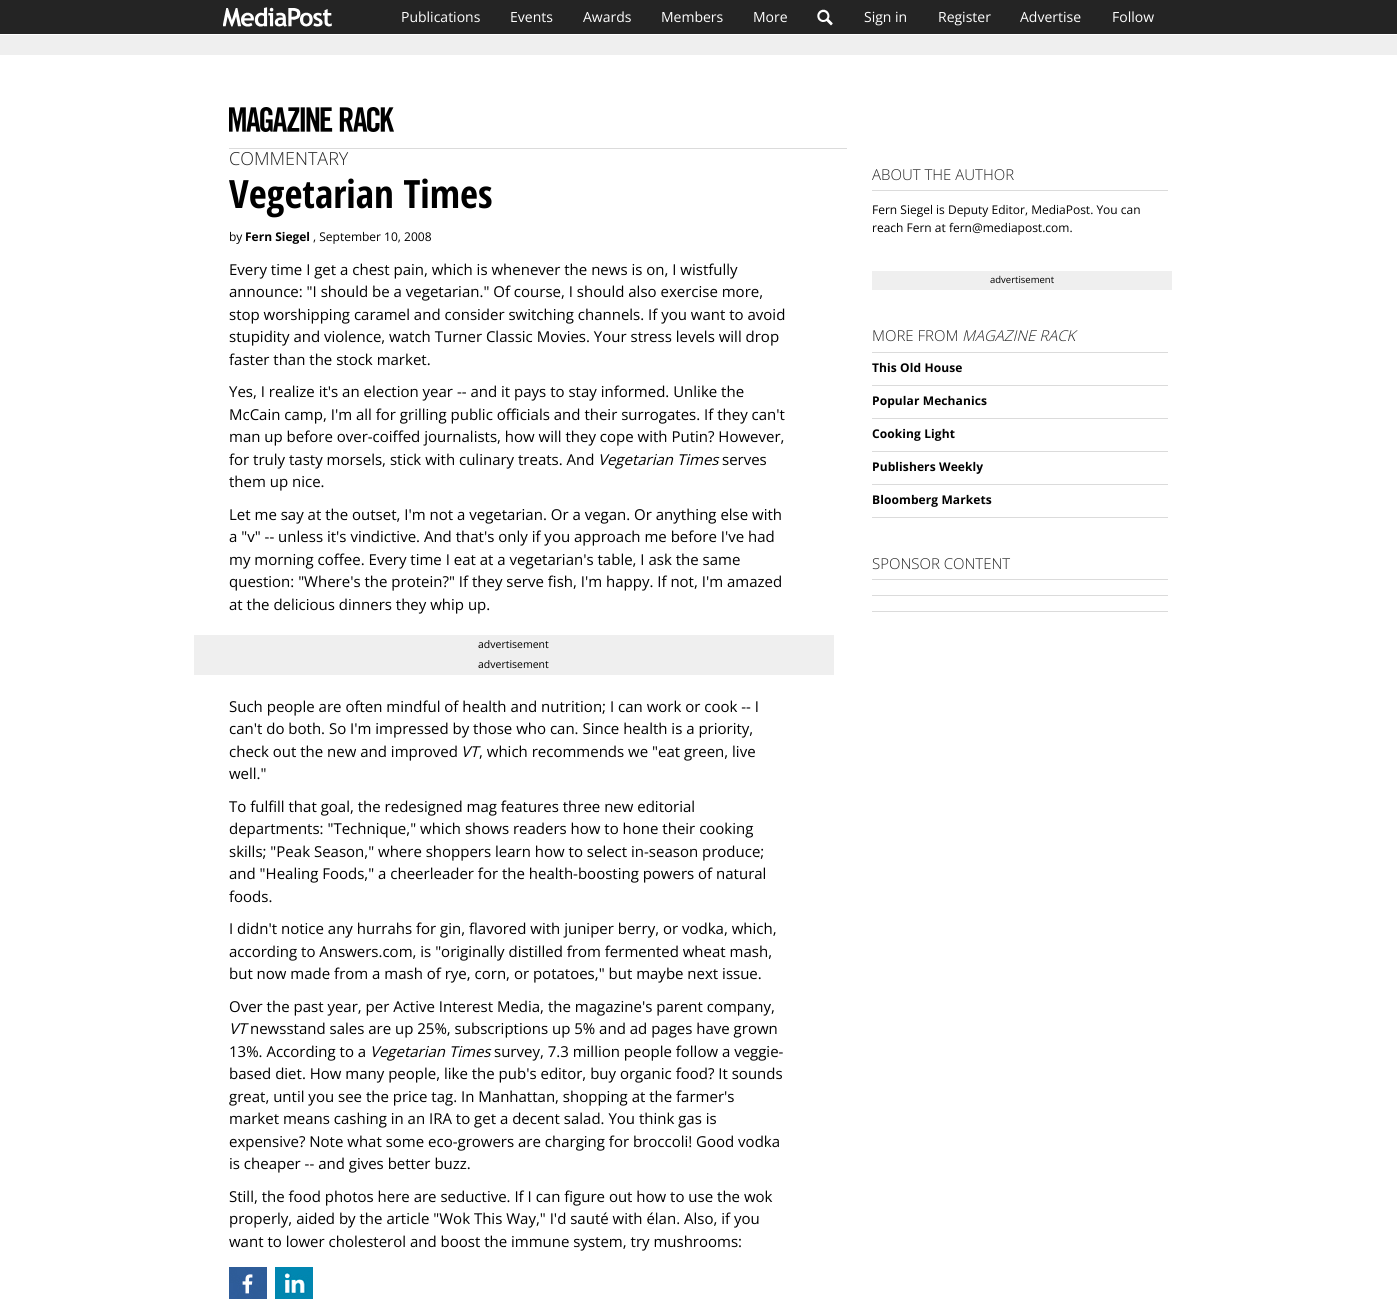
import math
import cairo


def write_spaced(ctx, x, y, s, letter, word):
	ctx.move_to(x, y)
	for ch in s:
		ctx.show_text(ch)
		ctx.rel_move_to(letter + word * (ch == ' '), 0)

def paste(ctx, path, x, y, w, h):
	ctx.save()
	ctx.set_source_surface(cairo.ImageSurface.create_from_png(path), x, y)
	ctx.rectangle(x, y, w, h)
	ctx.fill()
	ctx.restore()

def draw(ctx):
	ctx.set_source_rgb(1, 1, 1)
	ctx.paint()
	ctx.set_source_rgb(0.141, 0.141, 0.141)
	ctx.rectangle(0, 0, 1397, 34)
	ctx.fill()
	paste(ctx, 'media/1.png', 223, 7, 109, 20)
	ctx.select_font_face('Open Sans')
	ctx.set_font_size(14)
	ctx.set_source_rgb(1, 1, 1)
	for x, y, s in [
		(401, 22, 'Publications'),
		(510, 22, 'Events'),
		(583, 22, 'Awards'),
		(661, 22, 'Members'),
		(753, 22, 'More'),
	]:
		ctx.move_to(x, y)
		ctx.show_text(s)
	paste(ctx, 'media/2.png', 817, 9, 16, 17)
	for x, y, s in [
		(864, 22, 'Sign in'),
		(938, 22, 'Register'),
		(1020, 22, 'Advertise'),
		(1112, 22, 'Follow'),
	]:
		ctx.move_to(x, y)
		ctx.show_text(s)
	ctx.set_source_rgb(0.937, 0.937, 0.937)
	ctx.rectangle(0, 35, 1397, 20)
	ctx.fill()
	ctx.set_source_rgb(0.859, 0.859, 0.859)
	ctx.rectangle(229, 148, 618, 1)
	ctx.fill()
	paste(ctx, 'media/3.png', 229, 107, 165, 25)
	ctx.select_font_face('Open Sans Light')
	ctx.set_font_size(18)
	ctx.set_source_rgb(0.141, 0.141, 0.141)
	ctx.move_to(229, 165)
	ctx.show_text('COMMENTARY')
	ctx.select_font_face('Open Sans Condensed', cairo.FONT_SLANT_NORMAL, cairo.FONT_WEIGHT_BOLD)
	ctx.set_font_size(39)
	ctx.set_source_rgb(0, 0, 0)
	ctx.move_to(229, 208)
	ctx.show_text('Vegetarian Times')
	ctx.select_font_face('Open Sans')
	ctx.set_font_size(12)
	ctx.move_to(229, 241)
	ctx.show_text('by')
	ctx.select_font_face('Open Sans', cairo.FONT_SLANT_NORMAL, cairo.FONT_WEIGHT_BOLD)
	ctx.move_to(245, 241)
	ctx.show_text('Fern Siegel')
	ctx.select_font_face('Open Sans')
	ctx.move_to(313, 241)
	ctx.show_text(', September 10, 2008')
	ctx.set_font_size(15)
	for x, y, s in [
		(229, 275, 'Every time I get a chest pain, which is whenever the news is on, I wistfully'),
		(229, 297, 'announce: "I should be a vegetarian." Of course, I should also exercise more,'),
		(229, 320, 'stop worshipping caramel and consider switching channels. If you want to avoid'),
		(229, 342, 'stupidity and violence, watch Turner Classic Movies. Your stress levels will drop'),
		(229, 365, 'faster than the stock market.'),
		(229, 397, 'Yes, I realize it\'s an election year -- and it pays to stay informed. Unlike the'),
		(229, 420, 'McCain camp, I\'m all for grilling public officials and their surrogates. If they can\'t'),
		(229, 442, 'man up before over-coiffed journalists, how will they cope with Putin? However,'),
		(229, 465, 'for truly tasty morsels, stick with culinary treats. And'),
	]:
		ctx.move_to(x, y)
		ctx.show_text(s)
	ctx.select_font_face('Open Sans', cairo.FONT_SLANT_ITALIC)
	ctx.move_to(598, 465)
	ctx.show_text('Vegetarian Times')
	ctx.select_font_face('Open Sans')
	for x, y, s in [
		(722, 465, 'serves'),
		(229, 487, 'them up nice.'),
		(229, 520, 'Let me say at the outset, I\'m not a vegetarian. Or a vegan. Or anything else with'),
		(229, 542, 'a "v" -- unless it\'s vindictive. And that\'s only if you approach me before I\'ve had'),
		(229, 565, 'my morning coffee. Every time I eat at a vegetarian\'s table, I ask the same'),
		(229, 587, 'question: "Where\'s the protein?" If they serve fish, I\'m happy. If not, I\'m amazed'),
		(229, 610, 'at the delicious dinners they whip up.'),
	]:
		ctx.move_to(x, y)
		ctx.show_text(s)
	ctx.set_source_rgb(0.937, 0.937, 0.937)
	ctx.rectangle(194, 635, 640, 40)
	ctx.fill()
	ctx.set_font_size(10.5)
	ctx.set_source_rgb(0, 0, 0)
	ctx.move_to(478, 648)
	ctx.show_text('advertisement')
	ctx.move_to(478, 668)
	ctx.show_text('advertisement')
	ctx.set_font_size(15)
	for x, y, s in [
		(229, 712, 'Such people are often mindful of health and nutrition; I can work or cook -- I'),
		(229, 734, 'can\'t do both. So I\'m impressed by those who can. Since health is a priority,'),
		(229, 757, 'check out the new and improved'),
	]:
		ctx.move_to(x, y)
		ctx.show_text(s)
	ctx.select_font_face('Open Sans', cairo.FONT_SLANT_ITALIC)
	ctx.move_to(461, 757)
	ctx.show_text('VT')
	ctx.select_font_face('Open Sans')
	for x, y, s in [
		(479, 757, ', which recommends we "eat green, live'),
		(229, 779, 'well."'),
		(229, 812, 'To fulfill that goal, the redesigned mag features three new editorial'),
		(229, 834, 'departments: "Technique," which shows readers how to hone their cooking'),
		(229, 857, 'skills; "Peak Season," where shoppers learn how to select in-season produce;'),
		(229, 879, 'and "Healing Foods," a cheerleader for the health-boosting powers of natural'),
		(229, 902, 'foods.'),
		(229, 934, 'I didn\'t notice any hurrahs for gin, flavored with juniper berry, or vodka, which,'),
		(229, 957, 'according to Answers.com, is "originally distilled from fermented wheat mash,'),
		(229, 979, 'but now made from a mash of rye, corn, or potatoes," but maybe next issue.'),
		(229, 1012, 'Over the past year, per Active Interest Media, the magazine\'s parent company,'),
	]:
		ctx.move_to(x, y)
		ctx.show_text(s)
	ctx.select_font_face('Open Sans', cairo.FONT_SLANT_ITALIC)
	ctx.move_to(229, 1034)
	ctx.show_text('VT')
	ctx.select_font_face('Open Sans')
	ctx.move_to(250, 1034)
	ctx.show_text('newsstand sales are up 25%, subscriptions up 5% and ad pages have grown')
	ctx.move_to(229, 1057)
	ctx.show_text('13%. According to a')
	ctx.select_font_face('Open Sans', cairo.FONT_SLANT_ITALIC)
	ctx.move_to(370, 1057)
	ctx.show_text('Vegetarian Times')
	ctx.select_font_face('Open Sans')
	for x, y, s in [
		(494, 1057, 'survey, 7.3 million people follow a veggie-'),
		(229, 1079, 'based diet. How many people, like the pub\'s editor, buy organic food? It sounds'),
		(229, 1102, 'great, until you see the price tag. In Manhattan, shopping at the farmer\'s'),
		(229, 1124, 'market means cashing in an IRA to get a decent salad. You think gas is'),
		(229, 1147, 'expensive? Note what some eco-growers are charging for broccoli! Good vodka'),
		(229, 1169, 'is cheaper -- and gives better buzz.'),
		(229, 1202, 'Still, the food photos here are seductive. If I can figure out how to use the wok'),
		(229, 1224, 'properly, aided by the article "Wok This Way," I\'d sauté with élan. Also, if you'),
		(229, 1247, 'want to lower cholesterol and boost the immune system, try mushrooms:'),
	]:
		ctx.move_to(x, y)
		ctx.show_text(s)
	paste(ctx, 'media/4.png', 229, 1267, 38, 32)
	paste(ctx, 'media/5.png', 275, 1267, 38, 32)
	ctx.set_source_rgb(0.859, 0.859, 0.859)
	ctx.rectangle(872, 190, 296, 1)
	ctx.fill()
	ctx.select_font_face('Open Sans Light')
	ctx.set_source_rgb(0.141, 0.141, 0.141)
	ctx.move_to(872, 180)
	ctx.show_text('ABOUT THE AUTHOR')
	ctx.select_font_face('Open Sans')
	ctx.set_font_size(12)
	ctx.set_source_rgb(0, 0, 0)
	ctx.move_to(872, 214)
	ctx.show_text('Fern Siegel is Deputy Editor, MediaPost. You can')
	ctx.move_to(872, 232)
	ctx.show_text('reach Fern at fern@mediapost.com.')
	ctx.set_source_rgb(0.937, 0.937, 0.937)
	ctx.rectangle(872, 271, 300, 19)
	ctx.fill()
	ctx.set_font_size(9.5)
	ctx.set_source_rgb(0, 0, 0)
	ctx.move_to(990, 283)
	ctx.show_text('advertisement')
	ctx.set_source_rgb(0.859, 0.859, 0.859)
	ctx.rectangle(872, 352, 296, 1)
	ctx.fill()
	ctx.select_font_face('Open Sans Light')
	ctx.set_font_size(15)
	ctx.set_source_rgb(0.141, 0.141, 0.141)
	ctx.move_to(872, 341)
	ctx.show_text('MORE FROM')
	ctx.select_font_face('Open Sans Light', cairo.FONT_SLANT_ITALIC)
	ctx.move_to(962, 341)
	ctx.show_text('MAGAZINE RACK')
	ctx.set_source_rgb(0.859, 0.859, 0.859)
	ctx.rectangle(872, 385, 296, 1)
	ctx.fill()
	ctx.select_font_face('Open Sans', cairo.FONT_SLANT_NORMAL, cairo.FONT_WEIGHT_BOLD)
	ctx.set_font_size(12)
	ctx.set_source_rgb(0, 0, 0)
	write_spaced(ctx, 872, 372, 'This Old House', 0.1, 0)
	ctx.set_source_rgb(0.859, 0.859, 0.859)
	ctx.rectangle(872, 418, 296, 1)
	ctx.fill()
	ctx.set_source_rgb(0, 0, 0)
	write_spaced(ctx, 872, 405, 'Popular Mechanics', 0.1, 0)
	ctx.set_source_rgb(0.859, 0.859, 0.859)
	ctx.rectangle(872, 451, 296, 1)
	ctx.fill()
	ctx.set_source_rgb(0, 0, 0)
	write_spaced(ctx, 872, 438, 'Cooking Light', 0.1, 0)
	ctx.set_source_rgb(0.859, 0.859, 0.859)
	ctx.rectangle(872, 484, 296, 1)
	ctx.fill()
	ctx.set_source_rgb(0, 0, 0)
	write_spaced(ctx, 872, 471, 'Publishers Weekly', 0.1, 0)
	ctx.set_source_rgb(0.859, 0.859, 0.859)
	ctx.rectangle(872, 517, 296, 1)
	ctx.fill()
	ctx.set_source_rgb(0, 0, 0)
	write_spaced(ctx, 872, 504, 'Bloomberg Markets', 0.1, 0)
	ctx.set_source_rgb(0.859, 0.859, 0.859)
	ctx.rectangle(872, 579, 296, 1)
	ctx.fill()
	ctx.select_font_face('Open Sans Light')
	ctx.set_font_size(15)
	ctx.set_source_rgb(0.141, 0.141, 0.141)
	ctx.move_to(872, 569)
	ctx.show_text('SPONSOR CONTENT')
	ctx.set_source_rgb(0.859, 0.859, 0.859)
	ctx.rectangle(872, 595, 296, 1)
	ctx.fill()
	ctx.rectangle(872, 611, 296, 1)
	ctx.fill()


surface = cairo.ImageSurface(cairo.FORMAT_RGB24, 1397, 1304)
ctx = cairo.Context(surface)
options = cairo.FontOptions()
options.set_hint_metrics(cairo.HINT_METRICS_OFF)
options.set_hint_style(cairo.HINT_STYLE_NONE)
ctx.set_font_options(options)
ctx.set_miter_limit(4)
draw(ctx)
surface.write_to_png('image.png')
